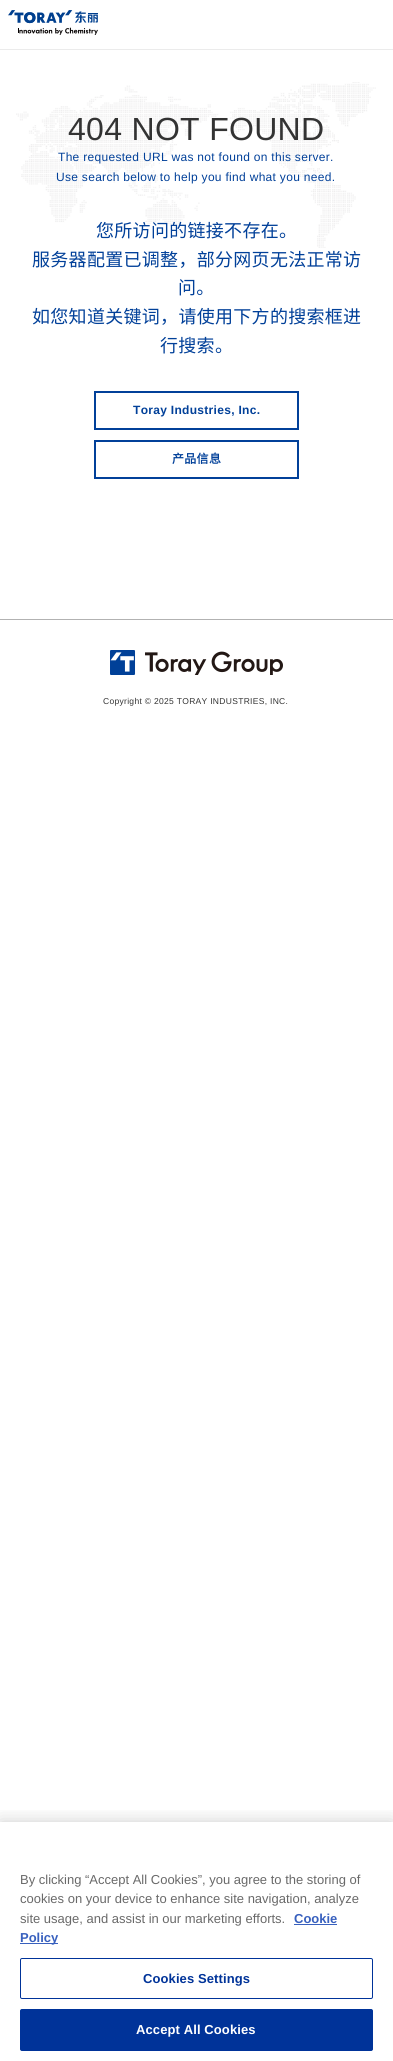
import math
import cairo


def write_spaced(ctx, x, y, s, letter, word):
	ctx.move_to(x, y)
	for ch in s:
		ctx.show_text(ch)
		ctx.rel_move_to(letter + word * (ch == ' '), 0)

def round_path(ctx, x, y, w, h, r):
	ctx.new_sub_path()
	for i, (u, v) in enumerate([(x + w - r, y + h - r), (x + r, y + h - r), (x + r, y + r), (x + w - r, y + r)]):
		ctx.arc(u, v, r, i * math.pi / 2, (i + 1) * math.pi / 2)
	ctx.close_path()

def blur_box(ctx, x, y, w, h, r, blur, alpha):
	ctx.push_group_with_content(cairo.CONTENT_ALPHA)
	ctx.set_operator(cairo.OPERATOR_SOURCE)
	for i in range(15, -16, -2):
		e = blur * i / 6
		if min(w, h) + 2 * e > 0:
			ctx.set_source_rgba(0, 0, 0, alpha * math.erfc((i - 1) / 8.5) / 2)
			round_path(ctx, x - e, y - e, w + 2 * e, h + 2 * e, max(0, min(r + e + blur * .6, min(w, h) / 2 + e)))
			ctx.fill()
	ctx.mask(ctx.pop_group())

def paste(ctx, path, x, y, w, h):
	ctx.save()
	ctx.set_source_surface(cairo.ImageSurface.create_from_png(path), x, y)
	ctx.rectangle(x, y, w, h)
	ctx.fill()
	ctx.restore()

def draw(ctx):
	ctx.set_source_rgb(1, 1, 1)
	ctx.paint()
	ctx.set_source_rgb(0.918, 0.918, 0.918)
	ctx.rectangle(0, 49, 393, 1)
	ctx.fill()
	paste(ctx, 'media/1.png', 8, 10, 90, 25)
	paste(ctx, 'media/2.png', 16, 82, 360, 166)
	ctx.select_font_face('Liberation Sans')
	ctx.set_font_size(32)
	ctx.set_source_rgb(0.2, 0.2, 0.2)
	write_spaced(ctx, 68, 140, '404 NOT FOUND', 0.3, 0)
	ctx.set_font_size(12)
	ctx.set_source_rgb(0.004, 0.251, 0.6)
	write_spaced(ctx, 58, 161, 'The requested URL was not found on this server.', 0.3, 0)
	write_spaced(ctx, 56, 181, 'Use search below to help you find what you need.', 0.3, 0)
	ctx.select_font_face('Noto Sans CJK SC')
	ctx.set_font_size(18)
	for x, y, s in [
		(96, 237, '您所访问的链接不存在。'),
		(32, 266, '服务器配置已调整，部分网页无法正常访'),
		(178, 294, '问。'),
		(32, 323, '如您知道关键词，请使用下方的搜索框进'),
		(160, 352, '行搜索。'),
	]:
		write_spaced(ctx, x, y, s, 0.3, 0)
	ctx.rectangle(95, 392, 203, 37)
	ctx.stroke()
	ctx.select_font_face('Liberation Sans', cairo.FONT_SLANT_NORMAL, cairo.FONT_WEIGHT_BOLD)
	ctx.set_font_size(12)
	write_spaced(ctx, 133, 414, 'Toray Industries, Inc.', 0.3, 0)
	ctx.rectangle(95, 441, 203, 37)
	ctx.stroke()
	ctx.select_font_face('Noto Sans CJK SC', cairo.FONT_SLANT_NORMAL, cairo.FONT_WEIGHT_BOLD)
	write_spaced(ctx, 172, 463, '产品信息', 0.3, 0)
	ctx.set_source_rgb(0.698, 0.698, 0.698)
	ctx.rectangle(0, 619, 393, 1)
	ctx.fill()
	paste(ctx, 'media/3.png', 110, 650, 173, 25)
	ctx.select_font_face('Liberation Sans')
	ctx.set_font_size(8.5)
	ctx.set_source_rgb(0.2, 0.2, 0.2)
	write_spaced(ctx, 103, 704, 'Copyright © 2025 TORAY INDUSTRIES, INC.', 0.3, 0)
	ctx.save()
	ctx.rectangle(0, 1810, 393, 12)
	ctx.clip()
	ctx.set_source_rgb(0, 0, 0)
	blur_box(ctx, 0, 1822, 393, 239, 0, 9, 0.2)
	ctx.restore()
	ctx.set_font_size(13)
	ctx.set_source_rgb(0.412, 0.412, 0.412)
	for x, y, s in [
		(20, 1884, 'By clicking “Accept All Cookies”, you agree to the storing of'),
		(20, 1903, 'cookies on your device to enhance site navigation, analyze'),
		(20, 1923, 'site usage, and assist in our marketing efforts.'),
	]:
		ctx.move_to(x, y)
		ctx.show_text(s)
	ctx.select_font_face('Liberation Sans', cairo.FONT_SLANT_NORMAL, cairo.FONT_WEIGHT_BOLD)
	ctx.set_source_rgb(0.22, 0.376, 0.745)
	ctx.move_to(294, 1923)
	ctx.show_text('Cookie')
	ctx.rectangle(294, 1924, 43, 1)
	ctx.fill()
	ctx.rectangle(20, 1943, 38, 1)
	ctx.fill()
	ctx.move_to(20, 1942)
	ctx.show_text('Policy')
	round_path(ctx, 20.5, 1958.5, 352, 40, 1.5)
	ctx.set_source_rgb(0, 0.2, 0.6)
	ctx.set_line_width(1)
	ctx.stroke()
	write_spaced(ctx, 143, 1983, 'Cookies Settings', 0.1, 0)
	round_path(ctx, 20.5, 2009.5, 352, 41, 1.5)
	ctx.fill_preserve()
	ctx.stroke()
	ctx.set_source_rgb(1, 1, 1)
	write_spaced(ctx, 136, 2034, 'Accept All Cookies', 0.1, 0)


surface = cairo.ImageSurface(cairo.FORMAT_RGB24, 393, 2061)
ctx = cairo.Context(surface)
options = cairo.FontOptions()
options.set_hint_metrics(cairo.HINT_METRICS_OFF)
options.set_hint_style(cairo.HINT_STYLE_NONE)
ctx.set_font_options(options)
ctx.set_miter_limit(4)
draw(ctx)
surface.write_to_png('image.png')
